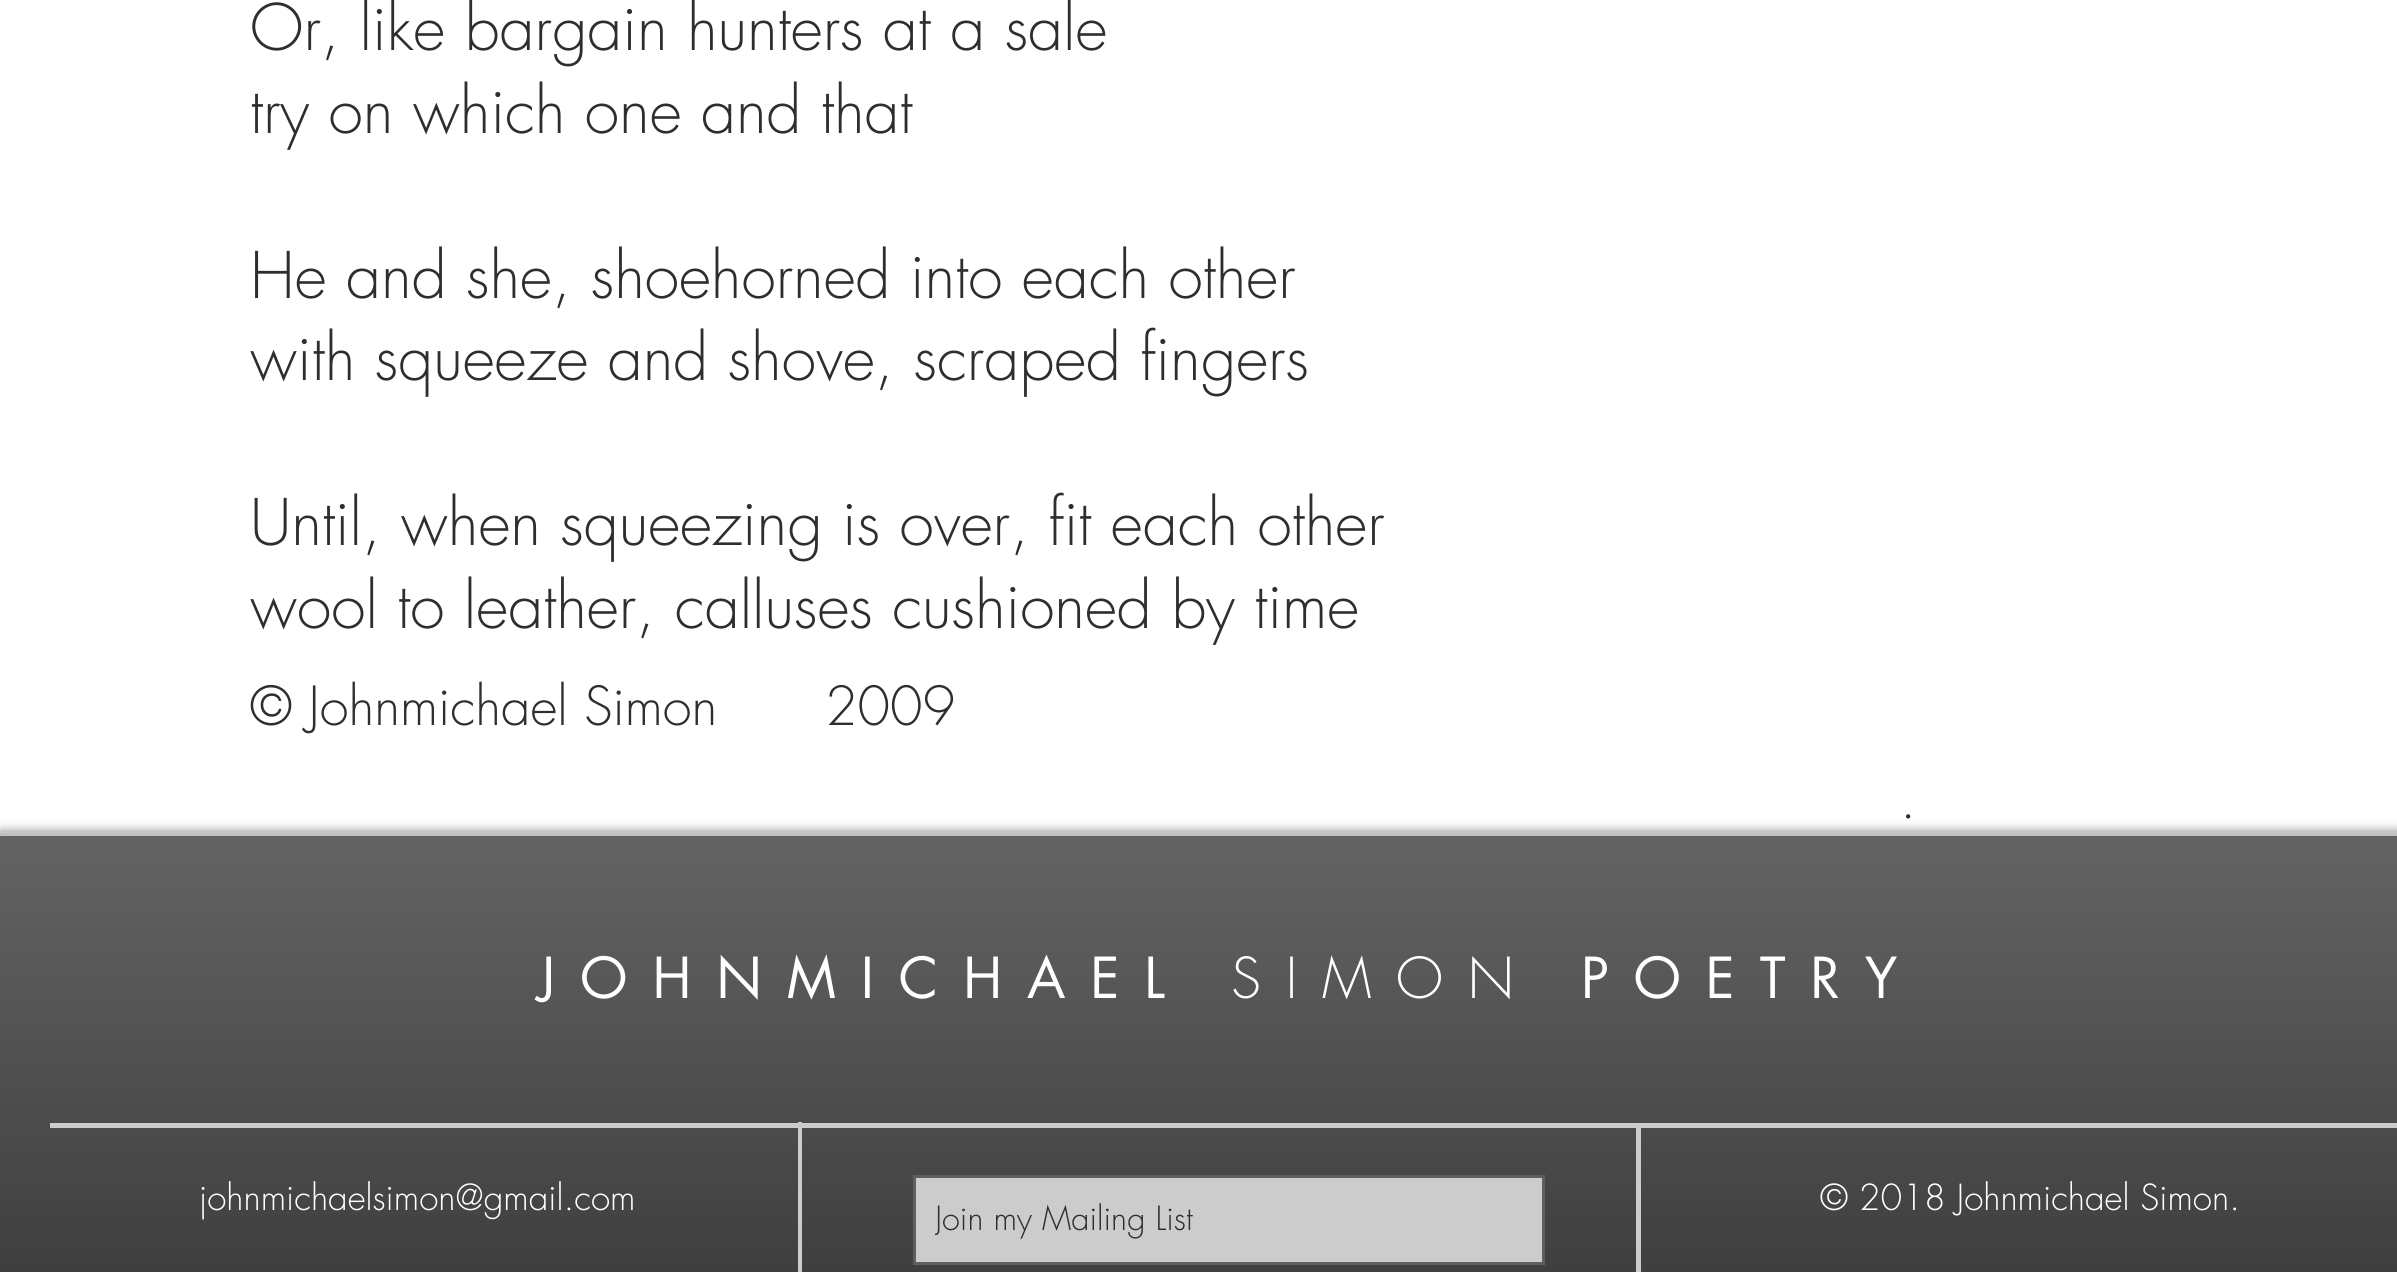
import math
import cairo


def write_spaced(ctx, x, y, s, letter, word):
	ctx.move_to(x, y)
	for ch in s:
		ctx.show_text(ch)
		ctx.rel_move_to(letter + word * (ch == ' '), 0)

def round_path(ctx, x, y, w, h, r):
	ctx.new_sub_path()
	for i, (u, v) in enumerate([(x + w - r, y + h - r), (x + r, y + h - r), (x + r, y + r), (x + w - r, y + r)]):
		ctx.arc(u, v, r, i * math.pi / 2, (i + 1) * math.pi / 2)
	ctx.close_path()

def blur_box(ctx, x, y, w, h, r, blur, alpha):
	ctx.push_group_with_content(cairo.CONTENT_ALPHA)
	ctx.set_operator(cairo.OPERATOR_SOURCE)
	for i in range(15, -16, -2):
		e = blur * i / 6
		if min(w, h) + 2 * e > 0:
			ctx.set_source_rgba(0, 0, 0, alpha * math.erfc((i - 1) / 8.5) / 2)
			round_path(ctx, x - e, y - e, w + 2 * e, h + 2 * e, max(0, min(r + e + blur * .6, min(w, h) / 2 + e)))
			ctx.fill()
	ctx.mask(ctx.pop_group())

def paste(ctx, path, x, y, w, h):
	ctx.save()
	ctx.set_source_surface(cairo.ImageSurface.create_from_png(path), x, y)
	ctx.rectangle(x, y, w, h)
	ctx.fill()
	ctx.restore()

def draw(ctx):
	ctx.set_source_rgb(1, 1, 1)
	ctx.paint()
	ctx.select_font_face('futura Light')
	ctx.set_font_size(62.5)
	ctx.set_source_rgb(0.184, 0.18, 0.18)
	for x, y, s in [
		(250, 50, 'Or, like bargain hunters at a sale'),
		(250, 133, 'try on which one and that'),
		(250, 298, 'He and she, shoehorned into each other'),
		(250, 380, 'with squeeze and shove, scraped fingers'),
		(250, 545, 'Until, when squeezing is over, fit each other'),
		(250, 628, 'wool to leather, calluses cushioned by time'),
	]:
		ctx.move_to(x, y)
		ctx.show_text(s)
	ctx.set_font_size(52.5)
	for x, y, s in [
		(250, 725, '© Johnmichael Simon'),
		(825, 725, '2009'),
		(1900, 818, '.'),
	]:
		ctx.move_to(x, y)
		ctx.show_text(s)
	ctx.set_source_rgb(0, 0, 0)
	blur_box(ctx, 0, 833, 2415, 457, 0, 6, 0.6)
	ctx.set_source_rgb(0.184, 0.18, 0.18)
	ctx.rectangle(0, 836, 2397, 436)
	ctx.fill()
	paste(ctx, 'media/1.png', 0, 832, 2397, 440)
	ctx.set_source_rgb(0.757, 0.757, 0.757)
	ctx.rectangle(0, 833, 2397, 3)
	ctx.fill()
	ctx.select_font_face('futura')
	ctx.set_font_size(55)
	ctx.set_source_rgb(1, 1, 1)
	write_spaced(ctx, 538, 998, 'JOHNMICHAEL', 24.75, 0)
	ctx.select_font_face('futura Light')
	write_spaced(ctx, 1231, 998, 'SIMON', 24.75, 0)
	ctx.select_font_face('futura')
	write_spaced(ctx, 1581, 998, 'POETRY', 24.75, 0)
	ctx.set_source_rgb(0.8, 0.8, 0.8)
	ctx.rectangle(50, 1123, 2347, 5)
	ctx.fill()
	ctx.rectangle(798, 1122, 4, 150)
	ctx.fill()
	ctx.select_font_face('futura Light')
	ctx.set_font_size(35)
	ctx.set_source_rgb(1, 1, 1)
	ctx.move_to(199, 1210)
	ctx.show_text('johnmichaelsimon@gmail.com')
	ctx.set_source_rgb(0.8, 0.8, 0.8)
	ctx.rectangle(1636, 1124, 5, 148)
	ctx.fill()
	ctx.set_source_rgb(1, 1, 1)
	ctx.move_to(1820, 1210)
	ctx.show_text('© 2018 Johnmichael Simon.')
	ctx.set_source_rgb(0.8, 0.8, 0.8)
	ctx.rectangle(914.5, 1176.5, 629, 87)
	ctx.fill_preserve()
	ctx.set_source_rgb(0.376, 0.369, 0.369)
	ctx.set_line_width(3)
	ctx.stroke()
	ctx.save()
	ctx.rectangle(935, 1198, 600, 42)
	ctx.clip()
	ctx.set_font_size(32.5)
	ctx.set_source_rgb(0.184, 0.18, 0.18)
	ctx.move_to(935, 1230)
	ctx.show_text('Join my Mailing List')
	ctx.restore()


surface = cairo.ImageSurface(cairo.FORMAT_RGB24, 2397, 1272)
ctx = cairo.Context(surface)
options = cairo.FontOptions()
options.set_hint_metrics(cairo.HINT_METRICS_OFF)
options.set_hint_style(cairo.HINT_STYLE_NONE)
ctx.set_font_options(options)
ctx.set_miter_limit(4)
draw(ctx)
surface.write_to_png('image.png')
